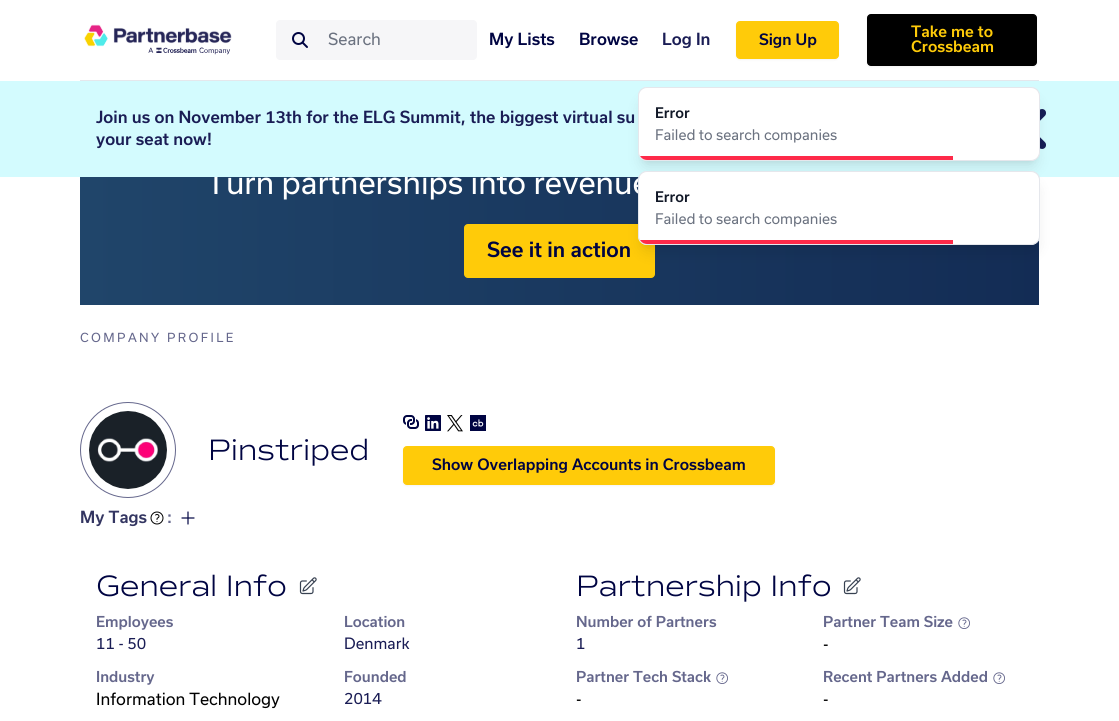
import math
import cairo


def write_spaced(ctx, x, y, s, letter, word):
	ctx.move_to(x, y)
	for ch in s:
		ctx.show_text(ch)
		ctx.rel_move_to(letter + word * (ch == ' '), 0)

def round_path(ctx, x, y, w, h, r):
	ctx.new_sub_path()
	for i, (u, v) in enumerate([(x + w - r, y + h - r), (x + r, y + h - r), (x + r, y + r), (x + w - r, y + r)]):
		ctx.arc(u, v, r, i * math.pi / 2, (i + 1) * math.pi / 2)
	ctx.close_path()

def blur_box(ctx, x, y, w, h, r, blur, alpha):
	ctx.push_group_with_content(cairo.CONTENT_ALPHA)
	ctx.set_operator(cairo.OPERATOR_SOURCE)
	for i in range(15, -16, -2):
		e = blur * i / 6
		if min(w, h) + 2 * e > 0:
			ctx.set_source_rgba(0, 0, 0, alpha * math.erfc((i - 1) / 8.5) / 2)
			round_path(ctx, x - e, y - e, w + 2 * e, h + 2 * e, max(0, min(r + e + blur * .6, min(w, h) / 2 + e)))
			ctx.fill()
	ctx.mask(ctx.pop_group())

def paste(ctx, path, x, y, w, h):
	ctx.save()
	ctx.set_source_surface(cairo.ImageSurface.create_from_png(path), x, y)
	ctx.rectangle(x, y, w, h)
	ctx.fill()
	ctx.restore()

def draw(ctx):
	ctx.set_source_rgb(1, 1, 1)
	ctx.paint()
	paste(ctx, 'media/1.png', 84, 24, 148, 31)
	ctx.set_source_rgb(0.961, 0.961, 0.969)
	round_path(ctx, 276, 20, 201, 40, 4)
	ctx.fill()
	paste(ctx, 'media/2.png', 292, 32, 16, 16)
	ctx.select_font_face('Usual')
	ctx.set_font_size(16)
	ctx.set_source_rgb(0.42, 0.447, 0.502)
	ctx.move_to(328, 45)
	ctx.show_text('Search')
	ctx.select_font_face('Usual Medium')
	ctx.set_source_rgb(0, 0.016, 0.259)
	ctx.move_to(489, 45)
	ctx.show_text('My Lists')
	ctx.move_to(579, 45)
	ctx.show_text('Browse')
	ctx.set_source_rgb(0.102, 0.114, 0.333)
	ctx.move_to(662, 45)
	ctx.show_text('Log In')
	ctx.set_source_rgb(0, 0, 0)
	blur_box(ctx, 736, 22, 103, 38, 4, 1, 0.05)
	ctx.set_source_rgb(1, 0.796, 0.039)
	round_path(ctx, 736.5, 21.5, 102, 37, 3.5)
	ctx.fill_preserve()
	ctx.set_line_width(1)
	ctx.stroke()
	ctx.set_font_size(15)
	ctx.set_source_rgb(0, 0.016, 0.259)
	ctx.move_to(759, 45)
	ctx.show_text('Sign Up')
	ctx.set_source_rgb(0, 0, 0)
	blur_box(ctx, 867, 15, 170, 52, 4, 1, 0.05)
	ctx.set_source_rgb(0, 0, 0)
	round_path(ctx, 867.5, 14.5, 169, 51, 3.5)
	ctx.fill_preserve()
	ctx.stroke()
	ctx.set_source_rgb(1, 0.796, 0.039)
	ctx.move_to(911, 37)
	ctx.show_text('Take me to')
	ctx.move_to(911, 52)
	ctx.show_text('Crossbeam')
	ctx.set_source_rgb(0.898, 0.906, 0.922)
	ctx.rectangle(80, 80, 959, 1)
	ctx.fill()
	gradient = cairo.LinearGradient(80, 216, 1039, 216)
	gradient.add_color_stop_rgba(0, 0.125, 0.271, 0.416, 1)
	gradient.add_color_stop_rgba(1, 0.075, 0.173, 0.333, 1)
	ctx.set_source(gradient)
	ctx.rectangle(80, 177, 959, 128)
	ctx.fill()
	ctx.select_font_face('Usual')
	ctx.set_font_size(30)
	ctx.set_source_rgb(1, 1, 1)
	ctx.move_to(206, 194)
	ctx.show_text('Turn partnerships into revenue')
	ctx.set_source_rgb(0.827, 0.984, 0.996)
	ctx.rectangle(0, 81, 1119, 96)
	ctx.fill()
	ctx.select_font_face('Usual Medium')
	ctx.set_font_size(16)
	ctx.set_source_rgb(0.102, 0.114, 0.333)
	ctx.move_to(96, 123)
	ctx.show_text('Join us on November 13th for the ELG Summit, the biggest virtual su')
	ctx.move_to(96, 145)
	ctx.show_text('your seat now!')
	paste(ctx, 'media/3.png', 1040, 109, 6, 40)
	ctx.set_source_rgb(1, 0.796, 0.039)
	round_path(ctx, 464.5, 224.5, 190, 53, 3.5)
	ctx.fill_preserve()
	ctx.stroke()
	ctx.set_font_size(20)
	ctx.set_source_rgb(0, 0.016, 0.259)
	ctx.move_to(487, 257)
	ctx.show_text('See it in action')
	ctx.select_font_face('Usual')
	ctx.set_font_size(12)
	ctx.set_source_rgb(0.396, 0.404, 0.549)
	write_spaced(ctx, 80, 342, 'COMPANY PROFILE', 2.4, 0)
	ctx.new_path()
	ctx.arc(128, 450, 47.5, 0, 2 * math.pi)
	ctx.stroke()
	paste(ctx, 'media/4.png', 89, 411, 78, 78)
	ctx.select_font_face('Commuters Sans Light')
	ctx.set_font_size(30)
	ctx.set_source_rgb(0, 0.016, 0.259)
	write_spaced(ctx, 208, 460, 'Pinstriped', -0.25, 0)
	paste(ctx, 'media/5.png', 403, 415, 16, 14)
	paste(ctx, 'media/6.png', 425, 415, 16, 16)
	paste(ctx, 'media/7.png', 447, 415, 16, 17)
	paste(ctx, 'media/8.png', 470, 415, 16, 16)
	ctx.set_source_rgb(0, 0, 0)
	blur_box(ctx, 403, 447, 372, 39, 4, 1, 0.05)
	ctx.set_source_rgb(1, 0.796, 0.039)
	round_path(ctx, 403.5, 446.5, 371, 38, 3.5)
	ctx.fill_preserve()
	ctx.stroke()
	ctx.select_font_face('Usual Medium')
	ctx.set_font_size(15)
	ctx.set_source_rgb(0, 0.016, 0.259)
	ctx.move_to(432, 470)
	ctx.show_text('Show Overlapping Accounts in Crossbeam')
	ctx.set_font_size(16)
	ctx.set_source_rgb(0.2, 0.208, 0.38)
	ctx.move_to(80, 523)
	ctx.show_text('My Tags')
	paste(ctx, 'media/9.png', 150, 511, 14, 14)
	ctx.set_source_rgb(0.396, 0.404, 0.549)
	ctx.move_to(167, 523)
	ctx.show_text(':')
	ctx.new_path()
	ctx.move_to(188, 512)
	ctx.line_to(188, 524)
	ctx.move_to(194, 518)
	ctx.line_to(182, 518)
	ctx.set_source_rgb(0, 0.016, 0.259)
	ctx.set_line_width(1.2)
	ctx.set_line_cap(cairo.LINE_CAP_ROUND)
	ctx.set_line_join(cairo.LINE_JOIN_ROUND)
	ctx.stroke()
	ctx.select_font_face('Commuters Sans Light')
	ctx.set_font_size(30)
	write_spaced(ctx, 96, 596, 'General Info', -0.25, 0)
	paste(ctx, 'media/10.png', 299, 577, 18, 18)
	ctx.select_font_face('Usual Medium')
	ctx.set_font_size(14.4)
	ctx.set_source_rgb(0.396, 0.404, 0.549)
	ctx.move_to(96, 627)
	ctx.show_text('Employees')
	ctx.select_font_face('Usual')
	ctx.set_font_size(15)
	ctx.set_source_rgb(0.102, 0.114, 0.333)
	ctx.move_to(96, 649)
	ctx.show_text('11 - 50')
	ctx.select_font_face('Usual Medium')
	ctx.set_font_size(14.4)
	ctx.set_source_rgb(0.396, 0.404, 0.549)
	ctx.move_to(344, 627)
	ctx.show_text('Location')
	ctx.select_font_face('Usual')
	ctx.set_font_size(15)
	ctx.set_source_rgb(0.102, 0.114, 0.333)
	ctx.move_to(344, 649)
	ctx.show_text('Denmark')
	ctx.select_font_face('Usual Medium')
	ctx.set_font_size(14.4)
	ctx.set_source_rgb(0.396, 0.404, 0.549)
	ctx.move_to(96, 682)
	ctx.show_text('Industry')
	ctx.select_font_face('Usual')
	ctx.set_font_size(16)
	ctx.set_source_rgb(0, 0, 0)
	ctx.move_to(96, 705)
	ctx.show_text('Information Technology')
	ctx.select_font_face('Usual Medium')
	ctx.set_font_size(14.4)
	ctx.set_source_rgb(0.396, 0.404, 0.549)
	ctx.move_to(344, 682)
	ctx.show_text('Founded')
	ctx.select_font_face('Usual')
	ctx.set_font_size(15)
	ctx.set_source_rgb(0.102, 0.114, 0.333)
	ctx.move_to(344, 704)
	ctx.show_text('2014')
	ctx.select_font_face('Commuters Sans Light')
	ctx.set_font_size(30)
	ctx.set_source_rgb(0, 0.016, 0.259)
	write_spaced(ctx, 576, 596, 'Partnership Info', -0.25, 0)
	paste(ctx, 'media/10.png', 843, 577, 18, 18)
	ctx.select_font_face('Usual Medium')
	ctx.set_font_size(14.4)
	ctx.set_source_rgb(0.396, 0.404, 0.549)
	ctx.move_to(576, 627)
	ctx.show_text('Number of Partners')
	ctx.select_font_face('Usual')
	ctx.set_font_size(15)
	ctx.set_source_rgb(0.102, 0.114, 0.333)
	ctx.move_to(576, 649)
	ctx.show_text('1')
	ctx.select_font_face('Usual Medium')
	ctx.set_font_size(14.4)
	ctx.set_source_rgb(0.396, 0.404, 0.549)
	ctx.move_to(823, 627)
	ctx.show_text('Partner Team Size')
	paste(ctx, 'media/11.png', 958, 617, 12, 12)
	ctx.select_font_face('Usual')
	ctx.set_font_size(16)
	ctx.set_source_rgb(0, 0, 0)
	ctx.move_to(823, 650)
	ctx.show_text('-')
	ctx.select_font_face('Usual Medium')
	ctx.set_font_size(14.4)
	ctx.set_source_rgb(0.396, 0.404, 0.549)
	ctx.move_to(576, 682)
	ctx.show_text('Partner Tech Stack')
	paste(ctx, 'media/11.png', 716, 672, 12, 12)
	ctx.select_font_face('Usual')
	ctx.set_font_size(16)
	ctx.set_source_rgb(0, 0, 0)
	ctx.move_to(576, 705)
	ctx.show_text('-')
	ctx.select_font_face('Usual Medium')
	ctx.set_font_size(14.4)
	ctx.set_source_rgb(0.396, 0.404, 0.549)
	ctx.move_to(823, 682)
	ctx.show_text('Recent Partners Added')
	paste(ctx, 'media/11.png', 993, 672, 12, 12)
	ctx.select_font_face('Usual')
	ctx.set_font_size(16)
	ctx.set_source_rgb(0, 0, 0)
	ctx.move_to(823, 705)
	ctx.show_text('-')
	ctx.set_source_rgb(0, 0, 0)
	blur_box(ctx, 643, 96, 392, 64, 4, 3, 0.1)
	blur_box(ctx, 642, 101, 394, 66, 5, 7.5, 0.1)
	round_path(ctx, 638.5, 87.5, 401, 73, 8.5)
	ctx.set_source_rgb(0.898, 0.906, 0.922)
	ctx.set_line_width(1)
	ctx.set_line_cap(cairo.LINE_CAP_BUTT)
	ctx.set_line_join(cairo.LINE_JOIN_MITER)
	ctx.stroke()
	ctx.set_source_rgb(1, 1, 1)
	round_path(ctx, 638.5, 87.5, 401, 73, 8.5)
	ctx.fill_preserve()
	ctx.set_source_rgb(0.898, 0.906, 0.922)
	ctx.stroke()
	ctx.select_font_face('Usual Medium')
	ctx.set_font_size(14)
	ctx.set_source_rgb(0.067, 0.094, 0.153)
	ctx.move_to(655, 118)
	ctx.show_text('Error')
	ctx.select_font_face('Usual')
	ctx.set_source_rgb(0.42, 0.447, 0.502)
	ctx.move_to(655, 140)
	ctx.show_text('Failed to search companies')
	ctx.save()
	round_path(ctx, 639, 88, 400, 72, 8)
	ctx.clip()
	ctx.set_source_rgb(0.996, 0.165, 0.286)
	ctx.rectangle(639, 156, 314, 4)
	ctx.fill()
	ctx.restore()
	ctx.set_source_rgb(0, 0, 0)
	blur_box(ctx, 643, 180, 392, 64, 4, 3, 0.1)
	blur_box(ctx, 642, 185, 394, 66, 5, 7.5, 0.1)
	round_path(ctx, 638.5, 171.5, 401, 73, 8.5)
	ctx.set_source_rgb(0.898, 0.906, 0.922)
	ctx.stroke()
	ctx.set_source_rgb(1, 1, 1)
	round_path(ctx, 638.5, 171.5, 401, 73, 8.5)
	ctx.fill_preserve()
	ctx.set_source_rgb(0.898, 0.906, 0.922)
	ctx.stroke()
	ctx.select_font_face('Usual Medium')
	ctx.set_source_rgb(0.067, 0.094, 0.153)
	ctx.move_to(655, 202)
	ctx.show_text('Error')
	ctx.select_font_face('Usual')
	ctx.set_source_rgb(0.42, 0.447, 0.502)
	ctx.move_to(655, 224)
	ctx.show_text('Failed to search companies')
	ctx.save()
	round_path(ctx, 639, 172, 400, 72, 8)
	ctx.clip()
	ctx.set_source_rgb(0.996, 0.165, 0.286)
	ctx.rectangle(639, 240, 314, 4)
	ctx.fill()
	ctx.restore()


surface = cairo.ImageSurface(cairo.FORMAT_RGB24, 1119, 721)
ctx = cairo.Context(surface)
options = cairo.FontOptions()
options.set_hint_metrics(cairo.HINT_METRICS_OFF)
options.set_hint_style(cairo.HINT_STYLE_NONE)
ctx.set_font_options(options)
ctx.set_miter_limit(4)
draw(ctx)
surface.write_to_png('image.png')
